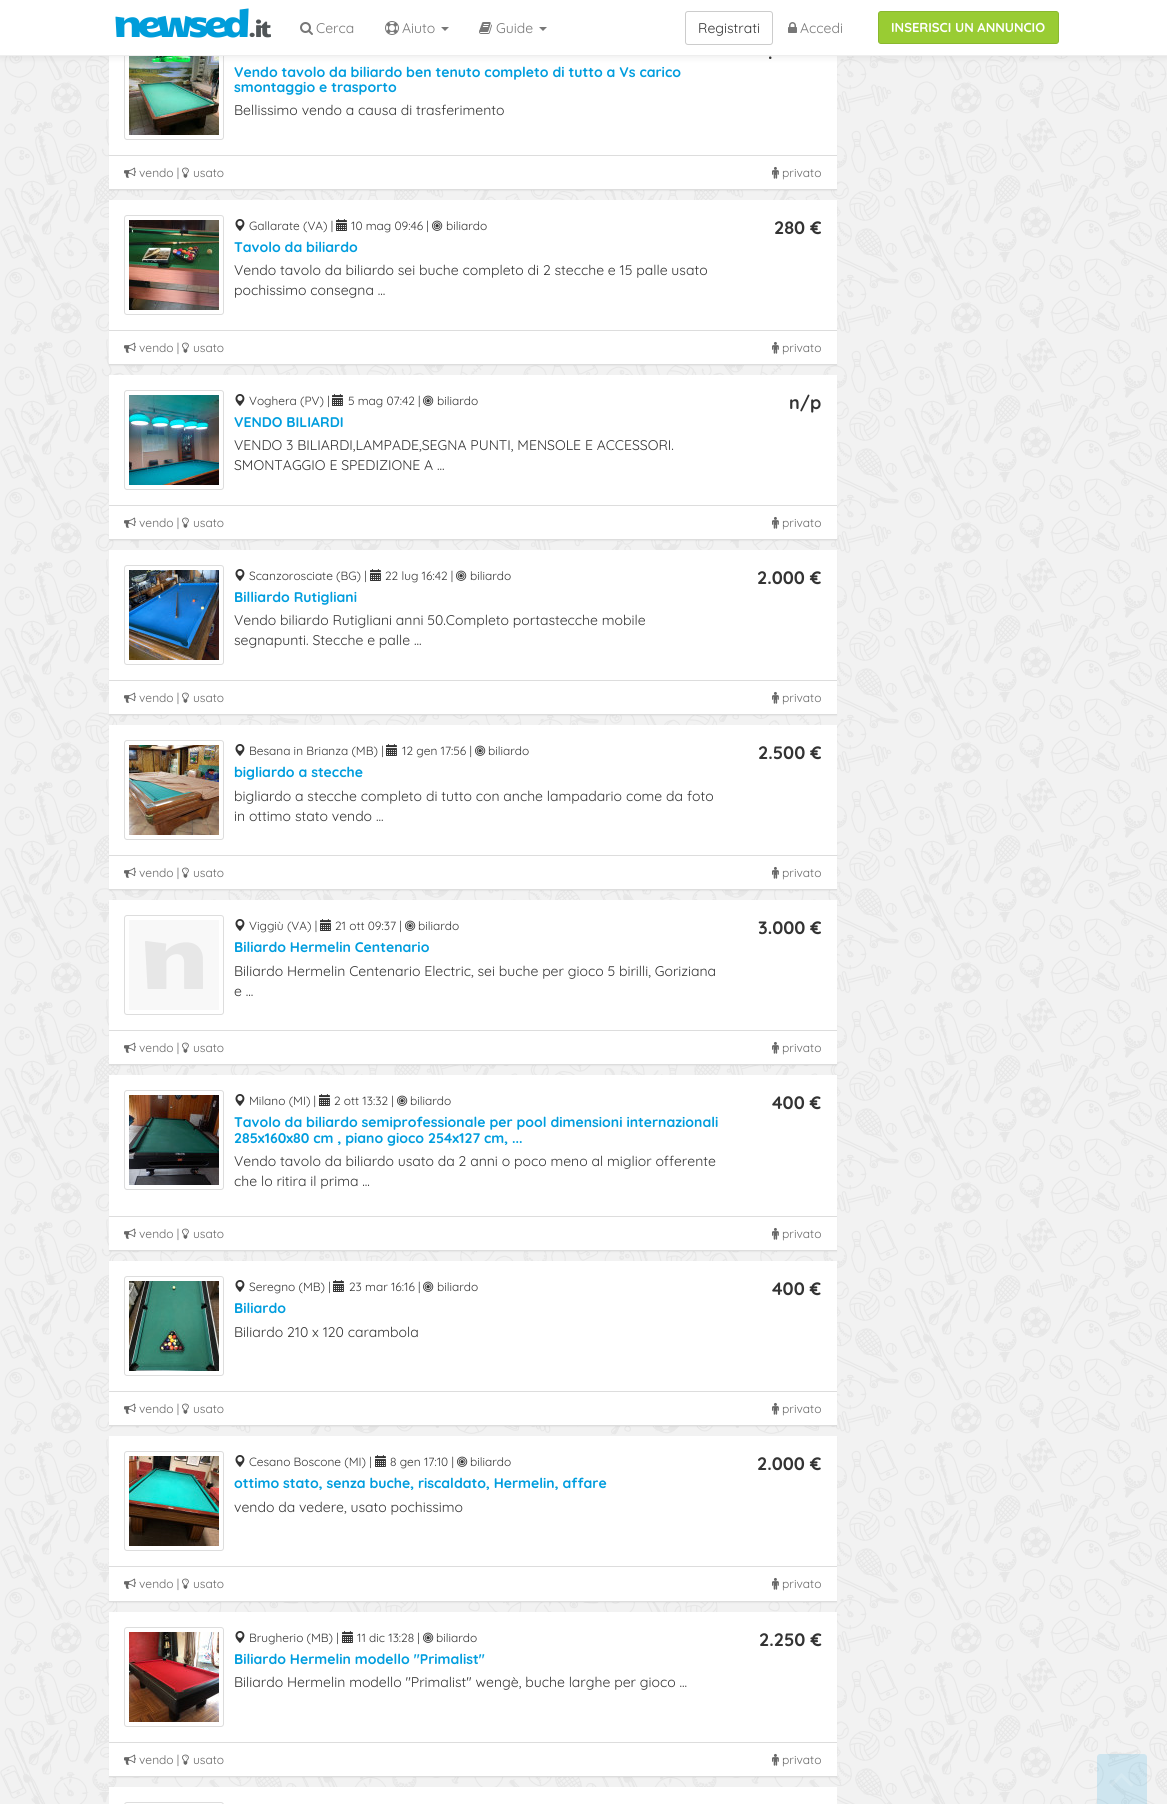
import math
import cairo


def round_path(ctx, x, y, w, h, r):
	ctx.new_sub_path()
	for i, (u, v) in enumerate([(x + w - r, y + h - r), (x + r, y + h - r), (x + r, y + r), (x + w - r, y + r)]):
		ctx.arc(u, v, r, i * math.pi / 2, (i + 1) * math.pi / 2)
	ctx.close_path()

def blur_box(ctx, x, y, w, h, r, blur, alpha):
	ctx.push_group_with_content(cairo.CONTENT_ALPHA)
	ctx.set_operator(cairo.OPERATOR_SOURCE)
	for i in range(15, -16, -2):
		e = blur * i / 6
		if min(w, h) + 2 * e > 0:
			ctx.set_source_rgba(0, 0, 0, alpha * math.erfc((i - 1) / 8.5) / 2)
			round_path(ctx, x - e, y - e, w + 2 * e, h + 2 * e, max(0, min(r + e + blur * .6, min(w, h) / 2 + e)))
			ctx.fill()
	ctx.mask(ctx.pop_group())

def paste(ctx, path, x, y, w, h):
	ctx.save()
	ctx.set_source_surface(cairo.ImageSurface.create_from_png(path), x, y)
	ctx.rectangle(x, y, w, h)
	ctx.fill()
	ctx.restore()

def draw(ctx):
	ctx.set_source_rgb(1, 1, 1)
	ctx.paint()
	paste(ctx, 'media/1.png', 0, 56, 1167, 1748)
	ctx.set_source_rgb(0, 0, 0)
	blur_box(ctx, 109, 26, 728, 165, 0, 0.5, 0.05)
	ctx.set_source_rgb(1, 1, 1)
	ctx.rectangle(109, 56, 728, 133)
	ctx.fill()
	round_path(ctx, 124.5, 40.5, 99, 99, 2.5)
	ctx.set_source_rgb(0.867, 0.867, 0.867)
	ctx.set_line_width(1)
	ctx.stroke()
	paste(ctx, 'media/7.png', 129, 56, 90, 79)
	ctx.set_source_rgb(0, 0, 0)
	blur_box(ctx, 0, 0, 1167, 56, 0, 4, 0.1)
	ctx.set_source_rgb(1, 1, 1)
	ctx.rectangle(0, 0, 1167, 55)
	ctx.fill()
	ctx.set_source_rgb(0.933, 0.933, 0.933)
	ctx.rectangle(0, 55, 1167, 1)
	ctx.fill()
	paste(ctx, 'media/2.png', 115, 8, 156, 30)
	paste(ctx, 'media/3.png', 300, 22, 13, 13)
	ctx.select_font_face('Quicksand')
	ctx.set_font_size(14)
	ctx.set_source_rgb(0.467, 0.467, 0.467)
	ctx.move_to(316, 33)
	ctx.show_text('Cerca')
	paste(ctx, 'media/4.png', 385, 21, 14, 14)
	ctx.move_to(402, 33)
	ctx.show_text('Aiuto')
	ctx.new_path()
	ctx.move_to(441, 27)
	ctx.line_to(449, 27)
	ctx.line_to(445, 31)
	ctx.close_path()
	ctx.fill()
	paste(ctx, 'media/5.png', 479, 22, 13, 12)
	ctx.move_to(496, 33)
	ctx.show_text('Guide')
	ctx.new_path()
	ctx.move_to(539, 27)
	ctx.line_to(547, 27)
	ctx.line_to(543, 31)
	ctx.close_path()
	ctx.fill()
	round_path(ctx, 685.5, 11.5, 87, 33, 2.5)
	ctx.set_source_rgb(0.8, 0.8, 0.8)
	ctx.stroke()
	ctx.set_source_rgb(0.2, 0.2, 0.2)
	ctx.move_to(698, 33)
	ctx.show_text('Registrati')
	paste(ctx, 'media/6.png', 788, 22, 9, 11)
	ctx.set_source_rgb(0.467, 0.467, 0.467)
	ctx.move_to(800, 33)
	ctx.show_text('Accedi')
	ctx.set_source_rgb(0.6, 0.8, 0.2)
	round_path(ctx, 878.5, 11.5, 180, 32, 2.5)
	ctx.fill_preserve()
	ctx.set_source_rgb(0.541, 0.722, 0.18)
	ctx.stroke()
	ctx.select_font_face('Quicksand', cairo.FONT_SLANT_NORMAL, cairo.FONT_WEIGHT_BOLD)
	ctx.set_font_size(13)
	ctx.set_source_rgb(1, 1, 1)
	ctx.move_to(891, 32)
	ctx.show_text('INSERISCI UN ANNUNCIO')
	ctx.set_source_rgb(0.867, 0.867, 0.867)
	ctx.rectangle(109, 189, 728, 1)
	ctx.fill()
	ctx.set_font_size(18)
	ctx.set_source_rgb(0.2, 0.2, 0.2)
	ctx.move_to(768, 59)
	ctx.show_text('.')
	ctx.set_font_size(14)
	ctx.set_source_rgb(0, 0.616, 0.871)
	ctx.move_to(234, 77)
	ctx.show_text('Vendo tavolo da biliardo ben tenuto completo di tutto a Vs carico')
	ctx.move_to(234, 92)
	ctx.show_text('smontaggio e trasporto')
	ctx.select_font_face('Quicksand')
	ctx.set_source_rgb(0.2, 0.2, 0.2)
	ctx.move_to(234, 115)
	ctx.show_text('Bellissimo vendo a causa di trasferimento')
	ctx.set_source_rgb(0.867, 0.867, 0.867)
	ctx.rectangle(109, 155, 728, 1)
	ctx.fill()
	paste(ctx, 'media/8.png', 124, 167, 12, 11)
	ctx.set_font_size(12)
	ctx.set_source_rgb(0.4, 0.4, 0.4)
	ctx.move_to(139, 177)
	ctx.show_text('vendo |')
	paste(ctx, 'media/9.png', 182, 167, 7, 11)
	ctx.move_to(193, 177)
	ctx.show_text('usato')
	paste(ctx, 'media/10.png', 772, 166, 7, 13)
	ctx.move_to(782, 177)
	ctx.show_text('privato')
	ctx.set_source_rgb(0, 0, 0)
	blur_box(ctx, 109, 201, 728, 165, 0, 0.5, 0.05)
	ctx.set_source_rgb(1, 1, 1)
	ctx.rectangle(109, 200, 728, 164)
	ctx.fill()
	ctx.set_source_rgb(0.867, 0.867, 0.867)
	ctx.rectangle(109, 364, 728, 1)
	ctx.fill()
	round_path(ctx, 124.5, 215.5, 99, 99, 2.5)
	ctx.stroke()
	paste(ctx, 'media/11.png', 129, 220, 90, 90)
	paste(ctx, 'media/12.png', 235, 219, 10, 12)
	ctx.set_font_size(11.9)
	ctx.set_source_rgb(0.2, 0.2, 0.2)
	ctx.move_to(249, 230)
	ctx.show_text('Gallarate (VA) |')
	paste(ctx, 'media/13.png', 336, 219, 11, 12)
	ctx.move_to(351, 230)
	ctx.show_text('10 mag 09:46 |')
	paste(ctx, 'media/14.png', 432, 220, 11, 11)
	ctx.move_to(446, 230)
	ctx.show_text('biliardo')
	ctx.select_font_face('Quicksand', cairo.FONT_SLANT_NORMAL, cairo.FONT_WEIGHT_BOLD)
	ctx.set_font_size(14)
	ctx.set_source_rgb(0, 0.616, 0.871)
	ctx.move_to(234, 252)
	ctx.show_text('Tavolo da biliardo')
	ctx.select_font_face('Quicksand')
	ctx.set_source_rgb(0.2, 0.2, 0.2)
	ctx.move_to(234, 275)
	ctx.show_text('Vendo tavolo da biliardo sei buche completo di 2 stecche e 15 palle usato')
	ctx.move_to(234, 295)
	ctx.show_text('pochissimo consegna ...')
	ctx.select_font_face('Quicksand', cairo.FONT_SLANT_NORMAL, cairo.FONT_WEIGHT_BOLD)
	ctx.set_font_size(18)
	ctx.move_to(774, 234)
	ctx.show_text('280 €')
	ctx.set_source_rgb(0.867, 0.867, 0.867)
	ctx.rectangle(109, 330, 728, 1)
	ctx.fill()
	paste(ctx, 'media/8.png', 124, 342, 12, 11)
	ctx.select_font_face('Quicksand')
	ctx.set_font_size(12)
	ctx.set_source_rgb(0.4, 0.4, 0.4)
	ctx.move_to(139, 352)
	ctx.show_text('vendo |')
	paste(ctx, 'media/9.png', 182, 342, 7, 11)
	ctx.move_to(193, 352)
	ctx.show_text('usato')
	paste(ctx, 'media/10.png', 772, 341, 7, 13)
	ctx.move_to(782, 352)
	ctx.show_text('privato')
	ctx.set_source_rgb(0, 0, 0)
	blur_box(ctx, 109, 376, 728, 165, 0, 0.5, 0.05)
	ctx.set_source_rgb(1, 1, 1)
	ctx.rectangle(109, 375, 728, 164)
	ctx.fill()
	ctx.set_source_rgb(0.867, 0.867, 0.867)
	ctx.rectangle(109, 539, 728, 1)
	ctx.fill()
	round_path(ctx, 124.5, 390.5, 99, 99, 2.5)
	ctx.stroke()
	paste(ctx, 'media/15.png', 129, 395, 90, 90)
	paste(ctx, 'media/12.png', 235, 394, 10, 12)
	ctx.set_font_size(11.9)
	ctx.set_source_rgb(0.2, 0.2, 0.2)
	ctx.move_to(249, 405)
	ctx.show_text('Voghera (PV) |')
	paste(ctx, 'media/13.png', 332, 394, 11, 12)
	ctx.move_to(348, 405)
	ctx.show_text('5 mag 07:42 |')
	paste(ctx, 'media/14.png', 423, 395, 11, 11)
	ctx.move_to(437, 405)
	ctx.show_text('biliardo')
	ctx.select_font_face('Quicksand', cairo.FONT_SLANT_NORMAL, cairo.FONT_WEIGHT_BOLD)
	ctx.set_font_size(14)
	ctx.set_source_rgb(0, 0.616, 0.871)
	ctx.move_to(234, 427)
	ctx.show_text('VENDO BILIARDI')
	ctx.select_font_face('Quicksand')
	ctx.set_source_rgb(0.2, 0.2, 0.2)
	ctx.move_to(234, 450)
	ctx.show_text('VENDO 3 BILIARDI,LAMPADE,SEGNA PUNTI, MENSOLE E ACCESSORI.')
	ctx.move_to(234, 470)
	ctx.show_text('SMONTAGGIO E SPEDIZIONE A ...')
	ctx.select_font_face('Quicksand', cairo.FONT_SLANT_NORMAL, cairo.FONT_WEIGHT_BOLD)
	ctx.set_font_size(18)
	ctx.move_to(789, 409)
	ctx.show_text('n/p')
	ctx.set_source_rgb(0.867, 0.867, 0.867)
	ctx.rectangle(109, 505, 728, 1)
	ctx.fill()
	paste(ctx, 'media/8.png', 124, 517, 12, 11)
	ctx.select_font_face('Quicksand')
	ctx.set_font_size(12)
	ctx.set_source_rgb(0.4, 0.4, 0.4)
	ctx.move_to(139, 527)
	ctx.show_text('vendo |')
	paste(ctx, 'media/9.png', 182, 517, 7, 11)
	ctx.move_to(193, 527)
	ctx.show_text('usato')
	paste(ctx, 'media/10.png', 772, 516, 7, 13)
	ctx.move_to(782, 527)
	ctx.show_text('privato')
	ctx.set_source_rgb(0, 0, 0)
	blur_box(ctx, 109, 551, 728, 165, 0, 0.5, 0.05)
	ctx.set_source_rgb(1, 1, 1)
	ctx.rectangle(109, 550, 728, 164)
	ctx.fill()
	ctx.set_source_rgb(0.867, 0.867, 0.867)
	ctx.rectangle(109, 714, 728, 1)
	ctx.fill()
	round_path(ctx, 124.5, 565.5, 99, 99, 2.5)
	ctx.stroke()
	paste(ctx, 'media/16.png', 129, 570, 90, 90)
	paste(ctx, 'media/12.png', 235, 569, 10, 12)
	ctx.set_font_size(11.9)
	ctx.set_source_rgb(0.2, 0.2, 0.2)
	ctx.move_to(249, 580)
	ctx.show_text('Scanzorosciate (BG) |')
	paste(ctx, 'media/13.png', 370, 569, 11, 12)
	ctx.move_to(385, 580)
	ctx.show_text('22 lug 16:42 |')
	paste(ctx, 'media/14.png', 456, 570, 11, 11)
	ctx.move_to(470, 580)
	ctx.show_text('biliardo')
	ctx.select_font_face('Quicksand', cairo.FONT_SLANT_NORMAL, cairo.FONT_WEIGHT_BOLD)
	ctx.set_font_size(14)
	ctx.set_source_rgb(0, 0.616, 0.871)
	ctx.move_to(234, 602)
	ctx.show_text('Billiardo Rutigliani')
	ctx.select_font_face('Quicksand')
	ctx.set_source_rgb(0.2, 0.2, 0.2)
	ctx.move_to(234, 625)
	ctx.show_text('Vendo biliardo Rutigliani anni 50.Completo portastecche mobile')
	ctx.move_to(234, 645)
	ctx.show_text('segnapunti. Stecche e palle ...')
	ctx.select_font_face('Quicksand', cairo.FONT_SLANT_NORMAL, cairo.FONT_WEIGHT_BOLD)
	ctx.set_font_size(18)
	ctx.move_to(757, 584)
	ctx.show_text('2.000 €')
	ctx.set_source_rgb(0.867, 0.867, 0.867)
	ctx.rectangle(109, 680, 728, 1)
	ctx.fill()
	paste(ctx, 'media/8.png', 124, 692, 12, 11)
	ctx.select_font_face('Quicksand')
	ctx.set_font_size(12)
	ctx.set_source_rgb(0.4, 0.4, 0.4)
	ctx.move_to(139, 702)
	ctx.show_text('vendo |')
	paste(ctx, 'media/9.png', 182, 692, 7, 11)
	ctx.move_to(193, 702)
	ctx.show_text('usato')
	paste(ctx, 'media/10.png', 772, 691, 7, 13)
	ctx.move_to(782, 702)
	ctx.show_text('privato')
	ctx.set_source_rgb(0, 0, 0)
	blur_box(ctx, 109, 726, 728, 165, 0, 0.5, 0.05)
	ctx.set_source_rgb(1, 1, 1)
	ctx.rectangle(109, 725, 728, 164)
	ctx.fill()
	ctx.set_source_rgb(0.867, 0.867, 0.867)
	ctx.rectangle(109, 889, 728, 1)
	ctx.fill()
	round_path(ctx, 124.5, 740.5, 99, 99, 2.5)
	ctx.stroke()
	paste(ctx, 'media/17.png', 129, 745, 90, 90)
	paste(ctx, 'media/12.png', 235, 744, 10, 12)
	ctx.set_font_size(11.9)
	ctx.set_source_rgb(0.2, 0.2, 0.2)
	ctx.move_to(249, 755)
	ctx.show_text('Besana in Brianza (MB) |')
	paste(ctx, 'media/13.png', 386, 744, 11, 12)
	ctx.move_to(402, 755)
	ctx.show_text('12 gen 17:56 |')
	paste(ctx, 'media/14.png', 475, 745, 11, 11)
	ctx.move_to(488, 755)
	ctx.show_text('biliardo')
	ctx.select_font_face('Quicksand', cairo.FONT_SLANT_NORMAL, cairo.FONT_WEIGHT_BOLD)
	ctx.set_font_size(14)
	ctx.set_source_rgb(0, 0.616, 0.871)
	ctx.move_to(234, 777)
	ctx.show_text('bigliardo a stecche')
	ctx.select_font_face('Quicksand')
	ctx.set_source_rgb(0.2, 0.2, 0.2)
	ctx.move_to(234, 801)
	ctx.show_text('bigliardo a stecche completo di tutto con anche lampadario come da foto')
	ctx.move_to(234, 821)
	ctx.show_text('in ottimo stato vendo ...')
	ctx.select_font_face('Quicksand', cairo.FONT_SLANT_NORMAL, cairo.FONT_WEIGHT_BOLD)
	ctx.set_font_size(18)
	ctx.move_to(758, 759)
	ctx.show_text('2.500 €')
	ctx.set_source_rgb(0.867, 0.867, 0.867)
	ctx.rectangle(109, 855, 728, 1)
	ctx.fill()
	paste(ctx, 'media/8.png', 124, 867, 12, 11)
	ctx.select_font_face('Quicksand')
	ctx.set_font_size(12)
	ctx.set_source_rgb(0.4, 0.4, 0.4)
	ctx.move_to(139, 877)
	ctx.show_text('vendo |')
	paste(ctx, 'media/9.png', 182, 867, 7, 11)
	ctx.move_to(193, 877)
	ctx.show_text('usato')
	paste(ctx, 'media/10.png', 772, 866, 7, 13)
	ctx.move_to(782, 877)
	ctx.show_text('privato')
	ctx.set_source_rgb(0, 0, 0)
	blur_box(ctx, 109, 901, 728, 165, 0, 0.5, 0.05)
	ctx.set_source_rgb(1, 1, 1)
	ctx.rectangle(109, 900, 728, 164)
	ctx.fill()
	ctx.set_source_rgb(0.867, 0.867, 0.867)
	ctx.rectangle(109, 1064, 728, 1)
	ctx.fill()
	round_path(ctx, 124.5, 915.5, 99, 99, 2.5)
	ctx.stroke()
	paste(ctx, 'media/18.png', 129, 920, 90, 90)
	paste(ctx, 'media/12.png', 235, 919, 10, 12)
	ctx.set_font_size(11.9)
	ctx.set_source_rgb(0.2, 0.2, 0.2)
	ctx.move_to(249, 930)
	ctx.show_text('Viggiù (VA) |')
	paste(ctx, 'media/13.png', 320, 919, 11, 12)
	ctx.move_to(335, 930)
	ctx.show_text('21 ott 09:37 |')
	paste(ctx, 'media/14.png', 405, 920, 11, 11)
	ctx.move_to(418, 930)
	ctx.show_text('biliardo')
	ctx.select_font_face('Quicksand', cairo.FONT_SLANT_NORMAL, cairo.FONT_WEIGHT_BOLD)
	ctx.set_font_size(14)
	ctx.set_source_rgb(0, 0.616, 0.871)
	ctx.move_to(234, 952)
	ctx.show_text('Biliardo Hermelin Centenario')
	ctx.select_font_face('Quicksand')
	ctx.set_source_rgb(0.2, 0.2, 0.2)
	ctx.move_to(234, 976)
	ctx.show_text('Biliardo Hermelin Centenario Electric, sei buche per gioco 5 birilli, Goriziana')
	ctx.move_to(234, 996)
	ctx.show_text('e ...')
	ctx.select_font_face('Quicksand', cairo.FONT_SLANT_NORMAL, cairo.FONT_WEIGHT_BOLD)
	ctx.set_font_size(18)
	ctx.move_to(758, 934)
	ctx.show_text('3.000 €')
	ctx.set_source_rgb(0.867, 0.867, 0.867)
	ctx.rectangle(109, 1030, 728, 1)
	ctx.fill()
	paste(ctx, 'media/8.png', 124, 1042, 12, 11)
	ctx.select_font_face('Quicksand')
	ctx.set_font_size(12)
	ctx.set_source_rgb(0.4, 0.4, 0.4)
	ctx.move_to(139, 1052)
	ctx.show_text('vendo |')
	paste(ctx, 'media/9.png', 182, 1042, 7, 11)
	ctx.move_to(193, 1052)
	ctx.show_text('usato')
	paste(ctx, 'media/10.png', 772, 1041, 7, 13)
	ctx.move_to(782, 1052)
	ctx.show_text('privato')
	ctx.set_source_rgb(0, 0, 0)
	blur_box(ctx, 109, 1076, 728, 176, 0, 0.5, 0.05)
	ctx.set_source_rgb(1, 1, 1)
	ctx.rectangle(109, 1075, 728, 175)
	ctx.fill()
	ctx.set_source_rgb(0.867, 0.867, 0.867)
	ctx.rectangle(109, 1250, 728, 1)
	ctx.fill()
	round_path(ctx, 124.5, 1090.5, 99, 99, 2.5)
	ctx.stroke()
	paste(ctx, 'media/19.png', 129, 1095, 90, 90)
	paste(ctx, 'media/12.png', 235, 1094, 10, 12)
	ctx.set_font_size(11.9)
	ctx.set_source_rgb(0.2, 0.2, 0.2)
	ctx.move_to(249, 1105)
	ctx.show_text('Milano (MI) |')
	paste(ctx, 'media/13.png', 319, 1094, 11, 12)
	ctx.move_to(334, 1105)
	ctx.show_text('2 ott 13:32 |')
	paste(ctx, 'media/14.png', 397, 1095, 11, 11)
	ctx.move_to(410, 1105)
	ctx.show_text('biliardo')
	ctx.select_font_face('Quicksand', cairo.FONT_SLANT_NORMAL, cairo.FONT_WEIGHT_BOLD)
	ctx.set_font_size(14)
	ctx.set_source_rgb(0, 0.616, 0.871)
	ctx.move_to(234, 1127)
	ctx.show_text('Tavolo da biliardo semiprofessionale per pool dimensioni internazionali')
	ctx.move_to(234, 1143)
	ctx.show_text('285x160x80 cm , piano gioco 254x127 cm, ...')
	ctx.select_font_face('Quicksand')
	ctx.set_source_rgb(0.2, 0.2, 0.2)
	ctx.move_to(234, 1166)
	ctx.show_text('Vendo tavolo da biliardo usato da 2 anni o poco meno al miglior offerente')
	ctx.move_to(234, 1186)
	ctx.show_text('che lo ritira il prima ...')
	ctx.select_font_face('Quicksand', cairo.FONT_SLANT_NORMAL, cairo.FONT_WEIGHT_BOLD)
	ctx.set_font_size(18)
	ctx.move_to(772, 1109)
	ctx.show_text('400 €')
	ctx.set_source_rgb(0.867, 0.867, 0.867)
	ctx.rectangle(109, 1216, 728, 1)
	ctx.fill()
	paste(ctx, 'media/8.png', 124, 1228, 12, 11)
	ctx.select_font_face('Quicksand')
	ctx.set_font_size(12)
	ctx.set_source_rgb(0.4, 0.4, 0.4)
	ctx.move_to(139, 1238)
	ctx.show_text('vendo |')
	paste(ctx, 'media/9.png', 182, 1228, 7, 11)
	ctx.move_to(193, 1238)
	ctx.show_text('usato')
	paste(ctx, 'media/10.png', 772, 1227, 7, 13)
	ctx.move_to(782, 1238)
	ctx.show_text('privato')
	ctx.set_source_rgb(0, 0, 0)
	blur_box(ctx, 109, 1262, 728, 165, 0, 0.5, 0.05)
	ctx.set_source_rgb(1, 1, 1)
	ctx.rectangle(109, 1261, 728, 164)
	ctx.fill()
	ctx.set_source_rgb(0.867, 0.867, 0.867)
	ctx.rectangle(109, 1425, 728, 1)
	ctx.fill()
	round_path(ctx, 124.5, 1276.5, 99, 99, 2.5)
	ctx.stroke()
	paste(ctx, 'media/20.png', 129, 1281, 90, 90)
	paste(ctx, 'media/12.png', 235, 1280, 10, 12)
	ctx.set_font_size(11.9)
	ctx.set_source_rgb(0.2, 0.2, 0.2)
	ctx.move_to(249, 1291)
	ctx.show_text('Seregno (MB) |')
	paste(ctx, 'media/13.png', 333, 1280, 11, 12)
	ctx.move_to(349, 1291)
	ctx.show_text('23 mar 16:16 |')
	paste(ctx, 'media/14.png', 423, 1281, 11, 11)
	ctx.move_to(437, 1291)
	ctx.show_text('biliardo')
	ctx.select_font_face('Quicksand', cairo.FONT_SLANT_NORMAL, cairo.FONT_WEIGHT_BOLD)
	ctx.set_font_size(14)
	ctx.set_source_rgb(0, 0.616, 0.871)
	ctx.move_to(234, 1313)
	ctx.show_text('Biliardo')
	ctx.select_font_face('Quicksand')
	ctx.set_source_rgb(0.2, 0.2, 0.2)
	ctx.move_to(234, 1337)
	ctx.show_text('Biliardo 210 x 120 carambola')
	ctx.select_font_face('Quicksand', cairo.FONT_SLANT_NORMAL, cairo.FONT_WEIGHT_BOLD)
	ctx.set_font_size(18)
	ctx.move_to(772, 1295)
	ctx.show_text('400 €')
	ctx.set_source_rgb(0.867, 0.867, 0.867)
	ctx.rectangle(109, 1391, 728, 1)
	ctx.fill()
	paste(ctx, 'media/8.png', 124, 1403, 12, 11)
	ctx.select_font_face('Quicksand')
	ctx.set_font_size(12)
	ctx.set_source_rgb(0.4, 0.4, 0.4)
	ctx.move_to(139, 1413)
	ctx.show_text('vendo |')
	paste(ctx, 'media/9.png', 182, 1403, 7, 11)
	ctx.move_to(193, 1413)
	ctx.show_text('usato')
	paste(ctx, 'media/10.png', 772, 1402, 7, 13)
	ctx.move_to(782, 1413)
	ctx.show_text('privato')
	ctx.set_source_rgb(0, 0, 0)
	blur_box(ctx, 109, 1437, 728, 166, 0, 0.5, 0.05)
	ctx.set_source_rgb(1, 1, 1)
	ctx.rectangle(109, 1436, 728, 165)
	ctx.fill()
	ctx.set_source_rgb(0.867, 0.867, 0.867)
	ctx.rectangle(109, 1601, 728, 1)
	ctx.fill()
	round_path(ctx, 124.5, 1451.5, 99, 99, 2.5)
	ctx.stroke()
	paste(ctx, 'media/21.png', 129, 1456, 90, 90)
	paste(ctx, 'media/12.png', 235, 1455, 10, 12)
	ctx.set_font_size(11.9)
	ctx.set_source_rgb(0.2, 0.2, 0.2)
	ctx.move_to(249, 1466)
	ctx.show_text('Cesano Boscone (MI) |')
	paste(ctx, 'media/13.png', 375, 1455, 11, 12)
	ctx.move_to(390, 1466)
	ctx.show_text('8 gen 17:10 |')
	paste(ctx, 'media/14.png', 457, 1456, 11, 11)
	ctx.move_to(470, 1466)
	ctx.show_text('biliardo')
	ctx.select_font_face('Quicksand', cairo.FONT_SLANT_NORMAL, cairo.FONT_WEIGHT_BOLD)
	ctx.set_font_size(14)
	ctx.set_source_rgb(0, 0.616, 0.871)
	ctx.move_to(234, 1488)
	ctx.show_text('ottimo stato, senza buche, riscaldato, Hermelin, affare')
	ctx.select_font_face('Quicksand')
	ctx.set_source_rgb(0.2, 0.2, 0.2)
	ctx.move_to(234, 1512)
	ctx.show_text('vendo da vedere, usato pochissimo')
	ctx.select_font_face('Quicksand', cairo.FONT_SLANT_NORMAL, cairo.FONT_WEIGHT_BOLD)
	ctx.set_font_size(18)
	ctx.move_to(757, 1470)
	ctx.show_text('2.000 €')
	ctx.set_source_rgb(0.867, 0.867, 0.867)
	ctx.rectangle(109, 1566, 728, 1)
	ctx.fill()
	paste(ctx, 'media/8.png', 124, 1578, 12, 11)
	ctx.select_font_face('Quicksand')
	ctx.set_font_size(12)
	ctx.set_source_rgb(0.4, 0.4, 0.4)
	ctx.move_to(139, 1588)
	ctx.show_text('vendo |')
	paste(ctx, 'media/9.png', 182, 1578, 7, 11)
	ctx.move_to(193, 1588)
	ctx.show_text('usato')
	paste(ctx, 'media/10.png', 772, 1577, 7, 13)
	ctx.move_to(782, 1588)
	ctx.show_text('privato')
	ctx.set_source_rgb(0, 0, 0)
	blur_box(ctx, 109, 1613, 728, 165, 0, 0.5, 0.05)
	ctx.set_source_rgb(1, 1, 1)
	ctx.rectangle(109, 1612, 728, 164)
	ctx.fill()
	ctx.set_source_rgb(0.867, 0.867, 0.867)
	ctx.rectangle(109, 1776, 728, 1)
	ctx.fill()
	round_path(ctx, 124.5, 1627.5, 99, 99, 2.5)
	ctx.stroke()
	paste(ctx, 'media/22.png', 129, 1632, 90, 90)
	paste(ctx, 'media/12.png', 235, 1631, 10, 12)
	ctx.set_font_size(11.9)
	ctx.set_source_rgb(0.2, 0.2, 0.2)
	ctx.move_to(249, 1642)
	ctx.show_text('Brugherio (MB) |')
	paste(ctx, 'media/13.png', 342, 1631, 11, 12)
	ctx.move_to(357, 1642)
	ctx.show_text('11 dic 13:28 |')
	paste(ctx, 'media/14.png', 423, 1632, 11, 11)
	ctx.move_to(436, 1642)
	ctx.show_text('biliardo')
	ctx.select_font_face('Quicksand', cairo.FONT_SLANT_NORMAL, cairo.FONT_WEIGHT_BOLD)
	ctx.set_font_size(14)
	ctx.set_source_rgb(0, 0.616, 0.871)
	ctx.move_to(234, 1664)
	ctx.show_text('Biliardo Hermelin modello "Primalist"')
	ctx.select_font_face('Quicksand')
	ctx.set_source_rgb(0.2, 0.2, 0.2)
	ctx.move_to(234, 1687)
	ctx.show_text('Biliardo Hermelin modello "Primalist" wengè, buche larghe per gioco ...')
	ctx.select_font_face('Quicksand', cairo.FONT_SLANT_NORMAL, cairo.FONT_WEIGHT_BOLD)
	ctx.set_font_size(18)
	ctx.move_to(759, 1646)
	ctx.show_text('2.250 €')
	ctx.set_source_rgb(0.867, 0.867, 0.867)
	ctx.rectangle(109, 1742, 728, 1)
	ctx.fill()
	paste(ctx, 'media/8.png', 124, 1754, 12, 11)
	ctx.select_font_face('Quicksand')
	ctx.set_font_size(12)
	ctx.set_source_rgb(0.4, 0.4, 0.4)
	ctx.move_to(139, 1764)
	ctx.show_text('vendo |')
	paste(ctx, 'media/9.png', 182, 1754, 7, 11)
	ctx.move_to(193, 1764)
	ctx.show_text('usato')
	paste(ctx, 'media/10.png', 772, 1753, 7, 13)
	ctx.move_to(782, 1764)
	ctx.show_text('privato')
	ctx.set_source_rgb(1, 1, 1)
	ctx.rectangle(109, 1787, 728, 17)
	ctx.fill()
	round_path(ctx, 124.5, 1802.5, 99, 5, 2.5)
	ctx.set_source_rgb(0.867, 0.867, 0.867)
	ctx.stroke()
	ctx.set_source_rgba(0, 0.616, 0.871, 0.15)
	ctx.new_path()
	ctx.move_to(1100, 1754)
	ctx.line_to(1144, 1754)
	ctx.curve_to(1145.5, 1754, 1147, 1755.5, 1147, 1757)
	ctx.line_to(1147, 1804)
	ctx.line_to(1097, 1804)
	ctx.line_to(1097, 1757)
	ctx.curve_to(1097, 1755.5, 1098.5, 1754, 1100, 1754)
	ctx.close_path()
	ctx.fill()
	paste(ctx, 'media/23.png', 1110, 1773, 23, 14)


surface = cairo.ImageSurface(cairo.FORMAT_RGB24, 1167, 1804)
ctx = cairo.Context(surface)
options = cairo.FontOptions()
options.set_hint_metrics(cairo.HINT_METRICS_OFF)
options.set_hint_style(cairo.HINT_STYLE_NONE)
ctx.set_font_options(options)
ctx.set_miter_limit(4)
draw(ctx)
surface.write_to_png('image.png')
